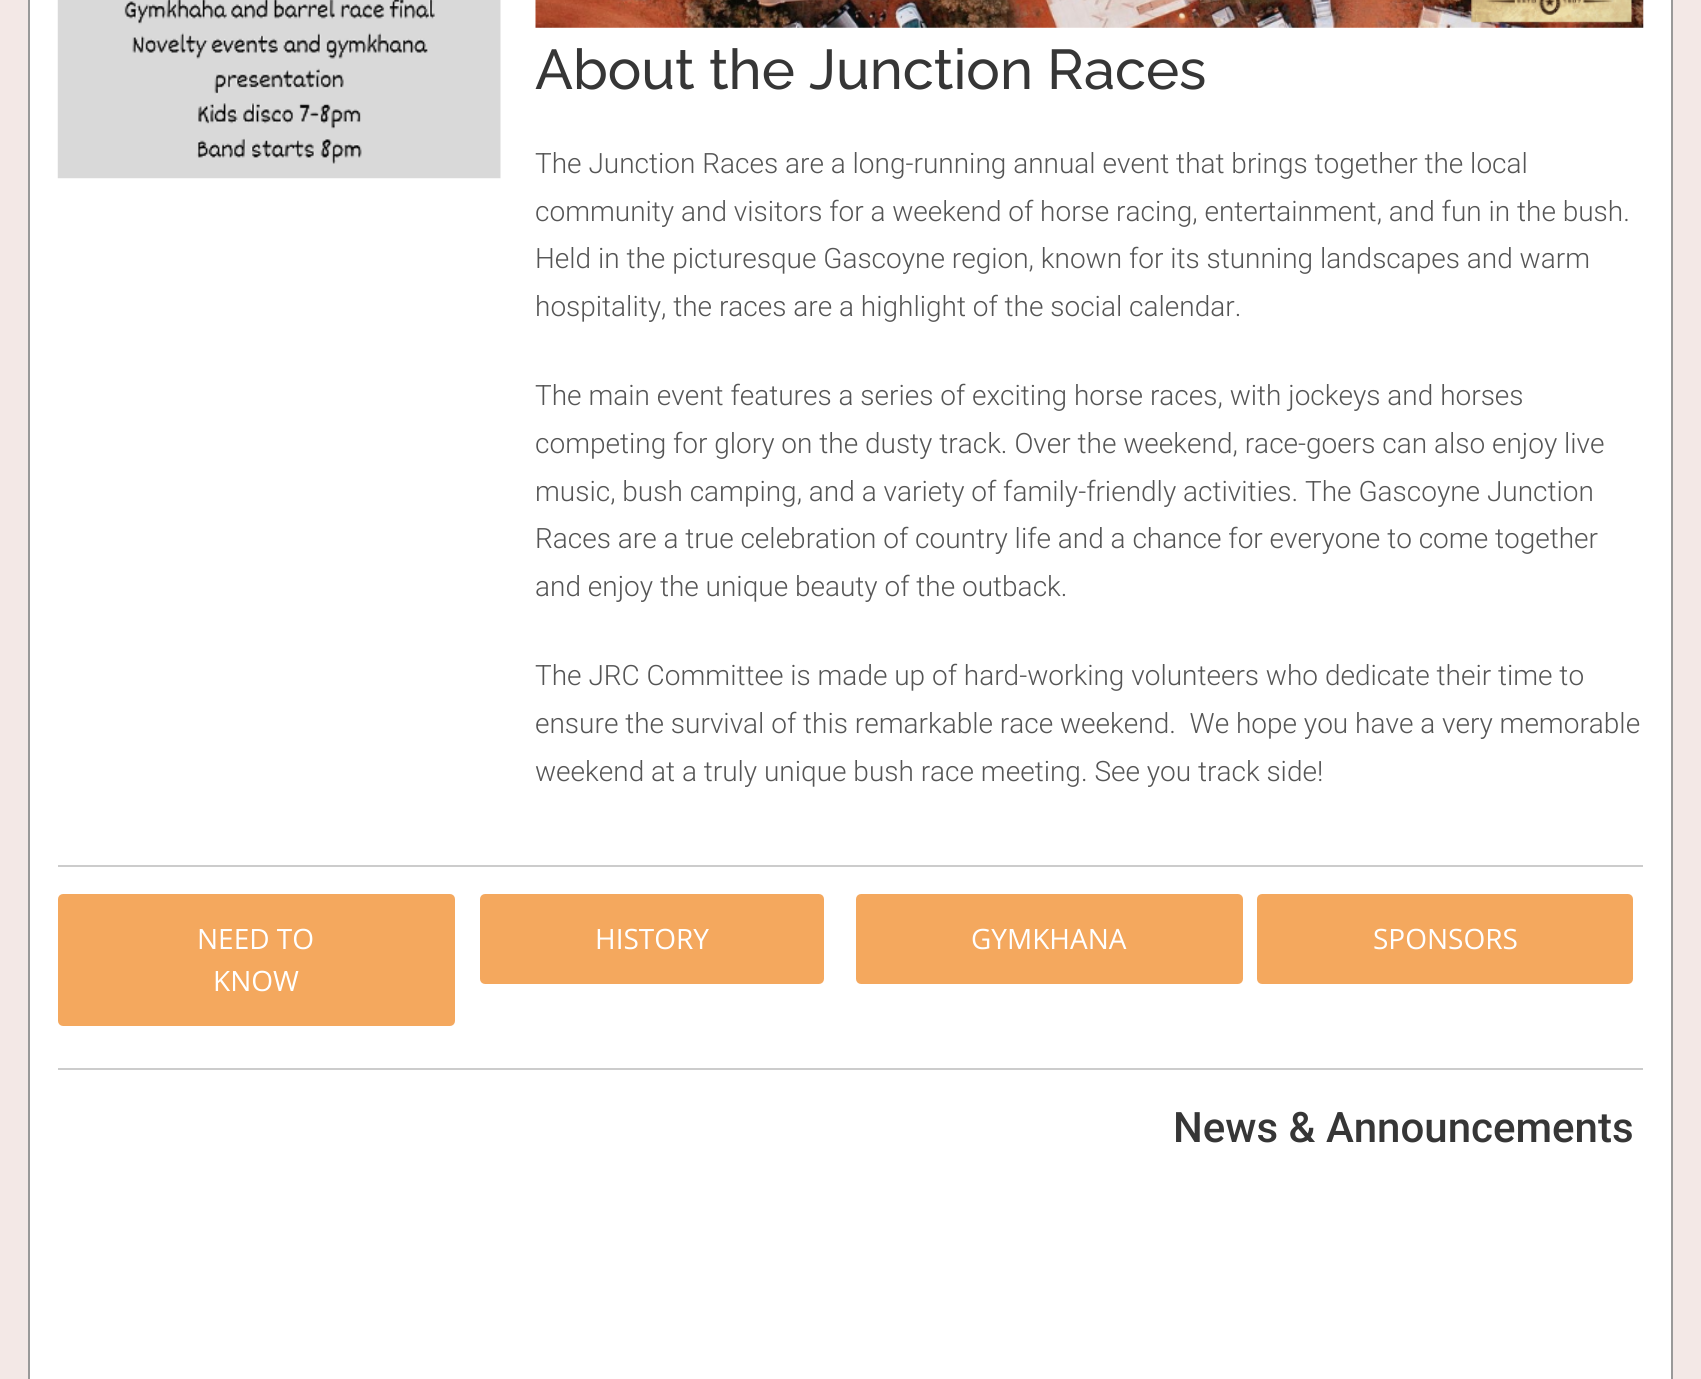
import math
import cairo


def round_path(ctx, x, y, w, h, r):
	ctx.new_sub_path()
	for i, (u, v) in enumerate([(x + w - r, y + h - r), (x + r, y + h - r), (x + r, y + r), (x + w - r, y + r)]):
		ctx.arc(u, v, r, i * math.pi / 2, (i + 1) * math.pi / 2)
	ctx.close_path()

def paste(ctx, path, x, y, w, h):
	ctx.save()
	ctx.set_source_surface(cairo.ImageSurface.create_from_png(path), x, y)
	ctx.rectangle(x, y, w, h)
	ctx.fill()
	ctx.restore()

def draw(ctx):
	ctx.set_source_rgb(0.953, 0.91, 0.902)
	ctx.paint()
	ctx.set_source_rgb(0.6, 0.6, 0.6)
	ctx.rectangle(1671, 0, 2, 1379)
	ctx.rectangle(28, 0, 2, 1379)
	ctx.fill()
	ctx.set_source_rgb(1, 1, 1)
	ctx.rectangle(30, 0, 1641, 1379)
	ctx.fill()
	paste(ctx, 'media/1.png', 57, 0, 444, 179)
	paste(ctx, 'media/2.png', 535, 0, 1109, 28)
	ctx.select_font_face('Raleway Medium')
	ctx.set_font_size(56)
	ctx.set_source_rgb(0.212, 0.212, 0.212)
	ctx.move_to(535, 89)
	ctx.show_text('About the Junction Races')
	ctx.select_font_face('Roboto Light')
	ctx.set_font_size(28)
	ctx.set_source_rgb(0.333, 0.333, 0.333)
	for x, y, s in [
		(535, 173, 'The Junction Races are a long-running annual event that brings together the local'),
		(535, 221, 'community and visitors for a weekend of horse racing, entertainment, and fun in the bush.'),
		(535, 268, 'Held in the picturesque Gascoyne region, known for its stunning landscapes and warm'),
		(535, 316, 'hospitality, the races are a highlight of the social calendar.'),
		(535, 405, 'The main event features a series of exciting horse races, with jockeys and horses'),
		(535, 453, 'competing for glory on the dusty track. Over the weekend, race-goers can also enjoy live'),
		(535, 501, 'music, bush camping, and a variety of family-friendly activities. The Gascoyne Junction'),
		(535, 548, 'Races are a true celebration of country life and a chance for everyone to come together'),
		(535, 596, 'and enjoy the unique beauty of the outback.'),
		(535, 685, 'The JRC Committee is made up of hard-working volunteers who dedicate their time to'),
		(535, 733, 'ensure the survival of this remarkable race weekend.  We hope you have a very memorable'),
		(535, 781, 'weekend at a truly unique bush race meeting. See you track side!'),
	]:
		ctx.move_to(x, y)
		ctx.show_text(s)
	ctx.set_source_rgb(0.8, 0.8, 0.8)
	ctx.rectangle(58, 865, 1585, 2)
	ctx.fill()
	ctx.set_source_rgb(0.957, 0.659, 0.369)
	round_path(ctx, 60, 896, 393, 128, 3)
	ctx.fill_preserve()
	ctx.set_line_width(4)
	ctx.stroke()
	ctx.select_font_face('Open Sans')
	ctx.set_source_rgb(1, 1, 1)
	ctx.move_to(197, 949)
	ctx.show_text('NEED TO')
	ctx.move_to(213, 991)
	ctx.show_text('KNOW')
	ctx.set_source_rgb(0.957, 0.659, 0.369)
	round_path(ctx, 482, 896, 340, 86, 3)
	ctx.fill_preserve()
	ctx.stroke()
	ctx.set_source_rgb(1, 1, 1)
	ctx.move_to(595, 949)
	ctx.show_text('HISTORY')
	ctx.set_source_rgb(0.957, 0.659, 0.369)
	round_path(ctx, 858, 896, 383, 86, 3)
	ctx.fill_preserve()
	ctx.stroke()
	ctx.set_source_rgb(1, 1, 1)
	ctx.move_to(971, 949)
	ctx.show_text('GYMKHANA')
	ctx.set_source_rgb(0.957, 0.659, 0.369)
	round_path(ctx, 1259, 896, 372, 86, 3)
	ctx.fill_preserve()
	ctx.stroke()
	ctx.set_source_rgb(1, 1, 1)
	ctx.move_to(1373, 949)
	ctx.show_text('SPONSORS')
	ctx.set_source_rgb(0.8, 0.8, 0.8)
	ctx.rectangle(58, 1068, 1585, 2)
	ctx.fill()
	ctx.select_font_face('Roboto Medium')
	ctx.set_font_size(42)
	ctx.set_source_rgb(0.212, 0.212, 0.212)
	ctx.move_to(1173, 1142)
	ctx.show_text('News & Announcements')


surface = cairo.ImageSurface(cairo.FORMAT_RGB24, 1701, 1379)
ctx = cairo.Context(surface)
options = cairo.FontOptions()
options.set_hint_metrics(cairo.HINT_METRICS_OFF)
options.set_hint_style(cairo.HINT_STYLE_NONE)
ctx.set_font_options(options)
ctx.set_miter_limit(4)
draw(ctx)
surface.write_to_png('image.png')
